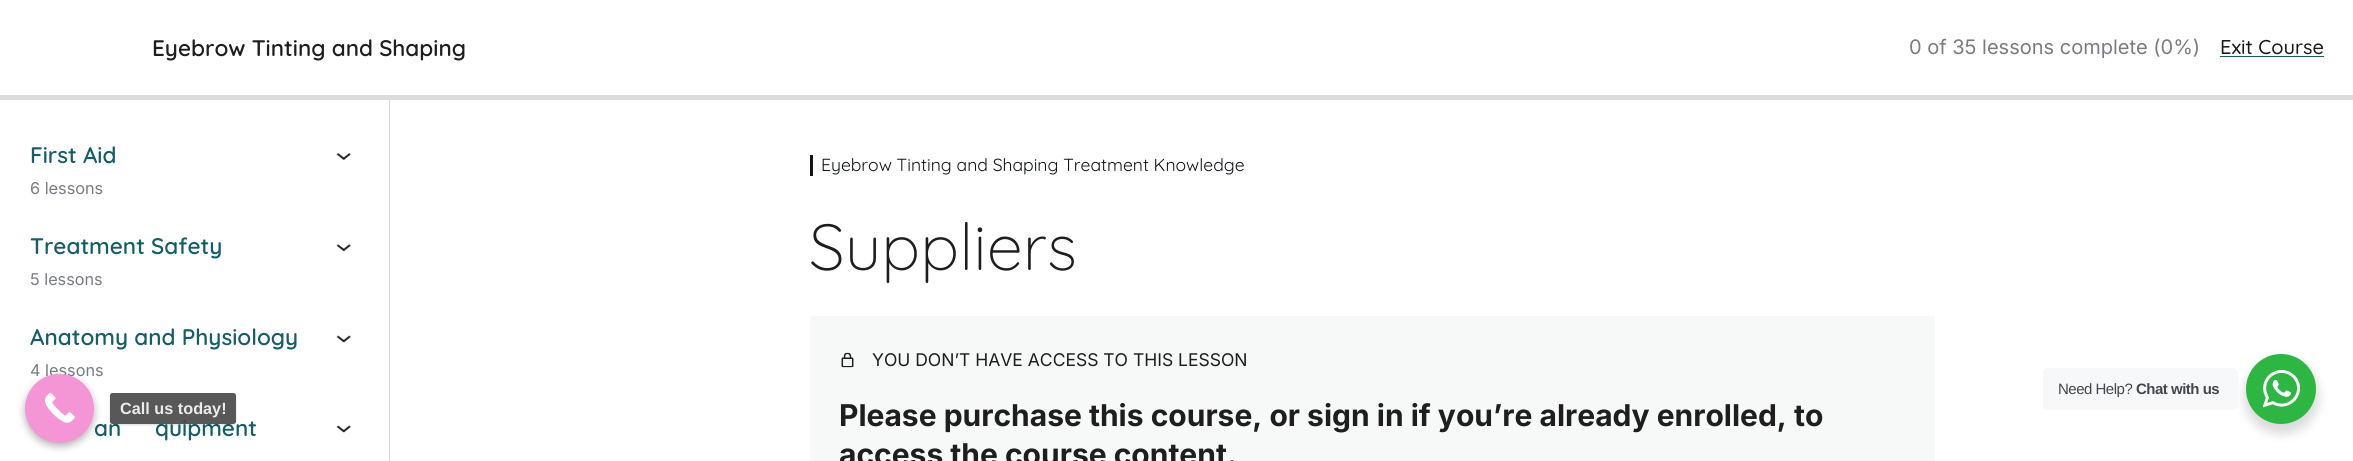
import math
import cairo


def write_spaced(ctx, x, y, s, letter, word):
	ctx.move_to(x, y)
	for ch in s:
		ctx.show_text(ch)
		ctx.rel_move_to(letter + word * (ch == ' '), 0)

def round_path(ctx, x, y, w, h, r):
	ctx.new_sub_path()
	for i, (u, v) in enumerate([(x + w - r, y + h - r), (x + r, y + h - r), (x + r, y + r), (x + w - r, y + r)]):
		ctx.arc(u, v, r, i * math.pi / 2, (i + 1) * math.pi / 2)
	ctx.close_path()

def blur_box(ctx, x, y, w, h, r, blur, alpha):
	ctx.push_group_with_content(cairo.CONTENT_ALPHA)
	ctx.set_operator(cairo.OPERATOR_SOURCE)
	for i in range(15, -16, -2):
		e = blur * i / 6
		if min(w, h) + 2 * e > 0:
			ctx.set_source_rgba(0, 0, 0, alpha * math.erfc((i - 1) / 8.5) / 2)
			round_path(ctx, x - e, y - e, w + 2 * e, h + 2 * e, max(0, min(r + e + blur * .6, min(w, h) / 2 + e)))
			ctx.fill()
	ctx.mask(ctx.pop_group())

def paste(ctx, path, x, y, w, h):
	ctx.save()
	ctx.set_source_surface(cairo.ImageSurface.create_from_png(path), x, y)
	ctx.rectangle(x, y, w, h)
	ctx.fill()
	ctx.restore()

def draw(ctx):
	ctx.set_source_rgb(1, 1, 1)
	ctx.paint()
	ctx.select_font_face('Quicksand SemiBold')
	ctx.set_font_size(22.5)
	ctx.set_source_rgb(0.118, 0.118, 0.118)
	ctx.move_to(152, 56)
	ctx.show_text('Eyebrow Tinting and Shaping')
	ctx.select_font_face('Inter')
	ctx.set_font_size(20)
	ctx.set_source_rgb(0.471, 0.486, 0.51)
	ctx.move_to(1909, 54)
	ctx.show_text('0 of 35 lessons complete (0%)')
	ctx.select_font_face('Quicksand Medium')
	ctx.set_source_rgb(0.094, 0.094, 0.094)
	ctx.move_to(2220, 54)
	ctx.show_text('Exit Course')
	ctx.set_source_rgb(0.082, 0.369, 0.396)
	ctx.rectangle(2220, 56, 104, 1)
	ctx.fill()
	ctx.set_source_rgb(0.863, 0.863, 0.871)
	ctx.rectangle(0, 95, 2353, 5)
	ctx.fill()
	ctx.set_source_rgb(0.847, 0.847, 0.847)
	ctx.rectangle(389, 100, 1, 361)
	ctx.fill()
	ctx.select_font_face('Quicksand SemiBold')
	ctx.set_font_size(22.5)
	ctx.set_source_rgb(0.082, 0.369, 0.396)
	ctx.move_to(30, 163)
	ctx.show_text('First Aid')
	paste(ctx, 'media/1.png', 336, 153, 15, 7)
	ctx.select_font_face('Inter')
	ctx.set_font_size(16.25)
	ctx.set_source_rgb(0.471, 0.486, 0.51)
	ctx.move_to(30, 194)
	ctx.show_text('6 lessons')
	ctx.select_font_face('Quicksand SemiBold')
	ctx.set_font_size(22.5)
	ctx.set_source_rgb(0.082, 0.369, 0.396)
	ctx.move_to(30, 254)
	ctx.show_text('Treatment Safety')
	paste(ctx, 'media/2.png', 336, 244, 15, 8)
	ctx.select_font_face('Inter')
	ctx.set_font_size(16.25)
	ctx.set_source_rgb(0.471, 0.486, 0.51)
	ctx.move_to(30, 285)
	ctx.show_text('5 lessons')
	ctx.select_font_face('Quicksand SemiBold')
	ctx.set_font_size(22.5)
	ctx.set_source_rgb(0.082, 0.369, 0.396)
	ctx.move_to(30, 345)
	ctx.show_text('Anatomy and Physiology')
	paste(ctx, 'media/3.png', 336, 335, 15, 8)
	ctx.select_font_face('Inter')
	ctx.set_font_size(16.25)
	ctx.set_source_rgb(0.471, 0.486, 0.51)
	ctx.move_to(30, 376)
	ctx.show_text('4 lessons')
	ctx.select_font_face('Quicksand SemiBold')
	ctx.set_font_size(22.5)
	ctx.set_source_rgb(0.082, 0.369, 0.396)
	ctx.move_to(94, 436)
	ctx.show_text('an')
	ctx.move_to(155, 436)
	ctx.show_text('quipment')
	paste(ctx, 'media/3.png', 336, 425, 15, 8)
	ctx.set_source_rgb(0.063, 0.082, 0.09)
	ctx.rectangle(810, 155, 3, 21)
	ctx.fill()
	ctx.select_font_face('Quicksand')
	ctx.set_font_size(17.5)
	ctx.move_to(821, 171)
	ctx.show_text('Eyebrow Tinting and Shaping Treatment Knowledge')
	ctx.select_font_face('Quicksand Light')
	ctx.set_font_size(65)
	ctx.set_source_rgb(0.118, 0.118, 0.118)
	ctx.move_to(809, 270)
	ctx.show_text('Suppliers')
	ctx.set_source_rgb(0.965, 0.969, 0.969)
	ctx.rectangle(810, 316, 1125, 145)
	ctx.fill()
	paste(ctx, 'media/4.png', 841, 352, 13, 16)
	ctx.select_font_face('Inter')
	ctx.set_font_size(17.5)
	ctx.set_source_rgb(0.118, 0.118, 0.118)
	ctx.move_to(872, 366)
	ctx.show_text('YOU DON’T HAVE ACCESS TO THIS LESSON')
	ctx.select_font_face('Inter', cairo.FONT_SLANT_NORMAL, cairo.FONT_WEIGHT_BOLD)
	ctx.set_font_size(30)
	ctx.move_to(839, 426)
	ctx.show_text('Please purchase this course, or sign in if you’re already enrolled, to')
	ctx.move_to(839, 465)
	ctx.show_text('access the course content.')
	ctx.set_source_rgb(0, 0, 0)
	blur_box(ctx, 2244, 359, 75, 75, 37.5, 5, 0.14)
	ctx.set_source_rgb(0.961, 0.969, 0.976)
	round_path(ctx, 2043, 368, 195, 42, 5)
	ctx.fill()
	ctx.select_font_face('Liberation Sans')
	ctx.set_font_size(15)
	ctx.set_source_rgb(0.263, 0.278, 0.306)
	write_spaced(ctx, 2058, 394, 'Need Help?', -0.5, 0)
	ctx.select_font_face('Liberation Sans', cairo.FONT_SLANT_NORMAL, cairo.FONT_WEIGHT_BOLD)
	write_spaced(ctx, 2136, 394, 'Chat with us', -0.5, 0)
	ctx.set_source_rgb(0.176, 0.718, 0.259)
	ctx.new_path()
	ctx.arc(2281, 389, 35, 0, 2 * math.pi)
	ctx.fill()
	paste(ctx, 'media/5.png', 2263, 370, 37, 38)
	ctx.set_source_rgb(0, 0, 0)
	blur_box(ctx, 25, 378, 69, 68, 34, 4, 0.3)
	ctx.set_source_rgb(0.957, 0.584, 0.839)
	ctx.arc(59.5, 408.5, 34.5, 0, 2 * math.pi)
	ctx.fill()
	paste(ctx, 'media/6.png', 44, 392, 31, 31)
	ctx.save()
	ctx.set_fill_rule(cairo.FILL_RULE_EVEN_ODD)
	ctx.new_path()
	ctx.move_to(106, 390)
	ctx.line_to(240, 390)
	ctx.line_to(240, 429)
	ctx.line_to(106, 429)
	ctx.close_path()
	ctx.move_to(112.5, 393)
	ctx.line_to(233.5, 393)
	ctx.curve_to(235, 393, 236, 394, 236, 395.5)
	ctx.line_to(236, 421.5)
	ctx.curve_to(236, 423, 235, 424, 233.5, 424)
	ctx.line_to(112.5, 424)
	ctx.curve_to(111, 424, 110, 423, 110, 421.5)
	ctx.line_to(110, 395.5)
	ctx.curve_to(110, 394, 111, 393, 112.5, 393)
	ctx.close_path()
	ctx.clip()
	ctx.set_source_rgb(0, 0, 0)
	blur_box(ctx, 110, 394, 126, 31, 2.5, 1, 0.15)
	ctx.restore()
	ctx.set_source_rgba(0.275, 0.275, 0.275, 0.9)
	round_path(ctx, 110, 393, 126, 31, 2.5)
	ctx.fill()
	ctx.set_font_size(16.25)
	ctx.set_source_rgb(0.925, 0.925, 0.925)
	ctx.move_to(120, 414)
	ctx.show_text('Call us today!')


surface = cairo.ImageSurface(cairo.FORMAT_RGB24, 2353, 461)
ctx = cairo.Context(surface)
options = cairo.FontOptions()
options.set_hint_metrics(cairo.HINT_METRICS_OFF)
options.set_hint_style(cairo.HINT_STYLE_NONE)
ctx.set_font_options(options)
ctx.set_miter_limit(4)
draw(ctx)
surface.write_to_png('image.png')
